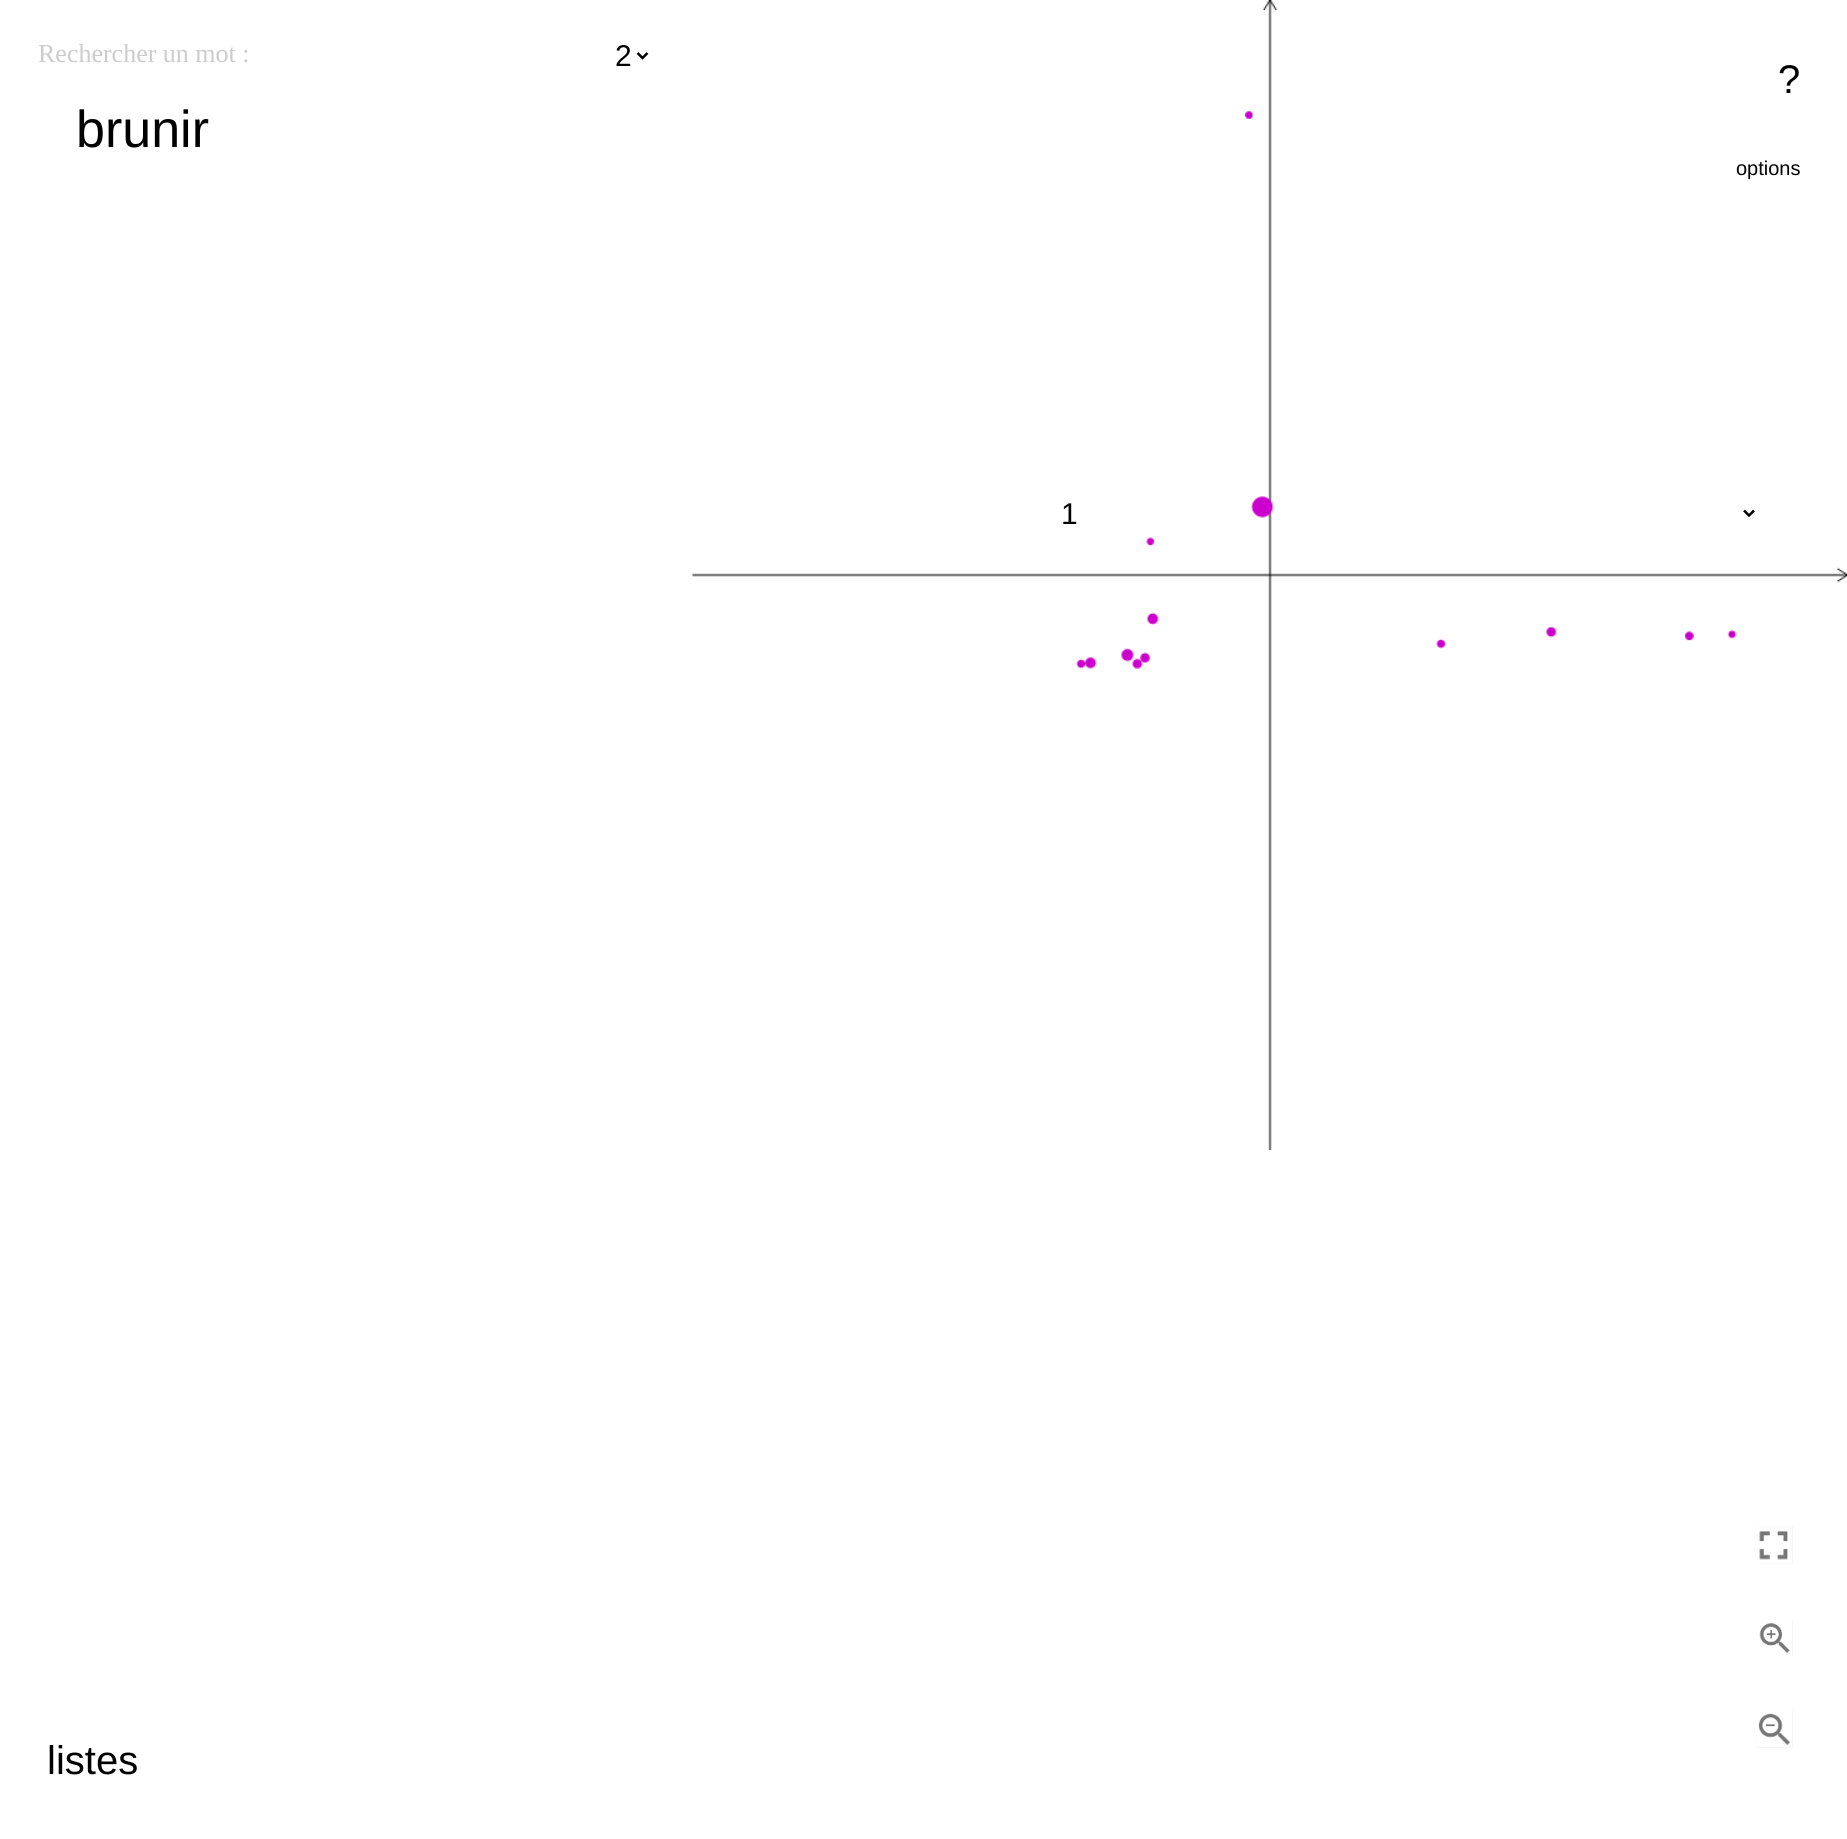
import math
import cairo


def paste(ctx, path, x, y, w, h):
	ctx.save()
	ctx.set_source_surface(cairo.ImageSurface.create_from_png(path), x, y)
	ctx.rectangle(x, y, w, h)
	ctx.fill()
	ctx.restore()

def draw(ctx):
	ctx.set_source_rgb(1, 1, 1)
	ctx.paint()
	ctx.select_font_face('Liberation Serif')
	ctx.set_font_size(26)
	ctx.set_source_rgb(0.8, 0.8, 0.8)
	ctx.move_to(38, 62)
	ctx.show_text('Rechercher un mot :')
	ctx.select_font_face('Liberation Sans')
	ctx.set_font_size(52)
	ctx.set_source_rgb(0, 0, 0)
	ctx.move_to(76, 147)
	ctx.show_text('brunir')
	ctx.new_path()
	ctx.move_to(637.5, 53)
	ctx.line_to(642.5, 58)
	ctx.line_to(647.5, 53)
	ctx.set_line_width(2.5)
	ctx.stroke()
	ctx.set_font_size(30)
	ctx.move_to(615, 66)
	ctx.show_text('2')
	paste(ctx, 'media/1.png', 692, 0, 1155, 1150)
	ctx.set_font_size(40)
	ctx.move_to(1778, 93)
	ctx.show_text('?')
	ctx.set_font_size(20)
	ctx.move_to(1736, 175)
	ctx.show_text('options')
	ctx.new_path()
	ctx.move_to(1744, 510.5)
	ctx.line_to(1749, 515.5)
	ctx.line_to(1754, 510.5)
	ctx.stroke()
	ctx.set_font_size(30)
	ctx.move_to(1061, 524)
	ctx.show_text('1')
	ctx.set_source_rgb(0.937, 0.937, 0.937)
	ctx.rectangle(1755, 1526, 38, 38)
	ctx.fill()
	paste(ctx, 'media/2.png', 1755, 1526, 38, 38)
	ctx.rectangle(1792, 1619, 1, 37)
	ctx.fill()
	paste(ctx, 'media/3.png', 1755, 1619, 38, 37)
	ctx.rectangle(1755, 1710, 38, 38)
	ctx.fill()
	paste(ctx, 'media/4.png', 1755, 1710, 38, 38)
	ctx.set_font_size(40)
	ctx.set_source_rgb(0, 0, 0)
	ctx.move_to(47, 1774)
	ctx.show_text('listes')


surface = cairo.ImageSurface(cairo.FORMAT_RGB24, 1847, 1839)
ctx = cairo.Context(surface)
options = cairo.FontOptions()
options.set_hint_metrics(cairo.HINT_METRICS_OFF)
options.set_hint_style(cairo.HINT_STYLE_NONE)
ctx.set_font_options(options)
ctx.set_miter_limit(4)
draw(ctx)
surface.write_to_png('image.png')
